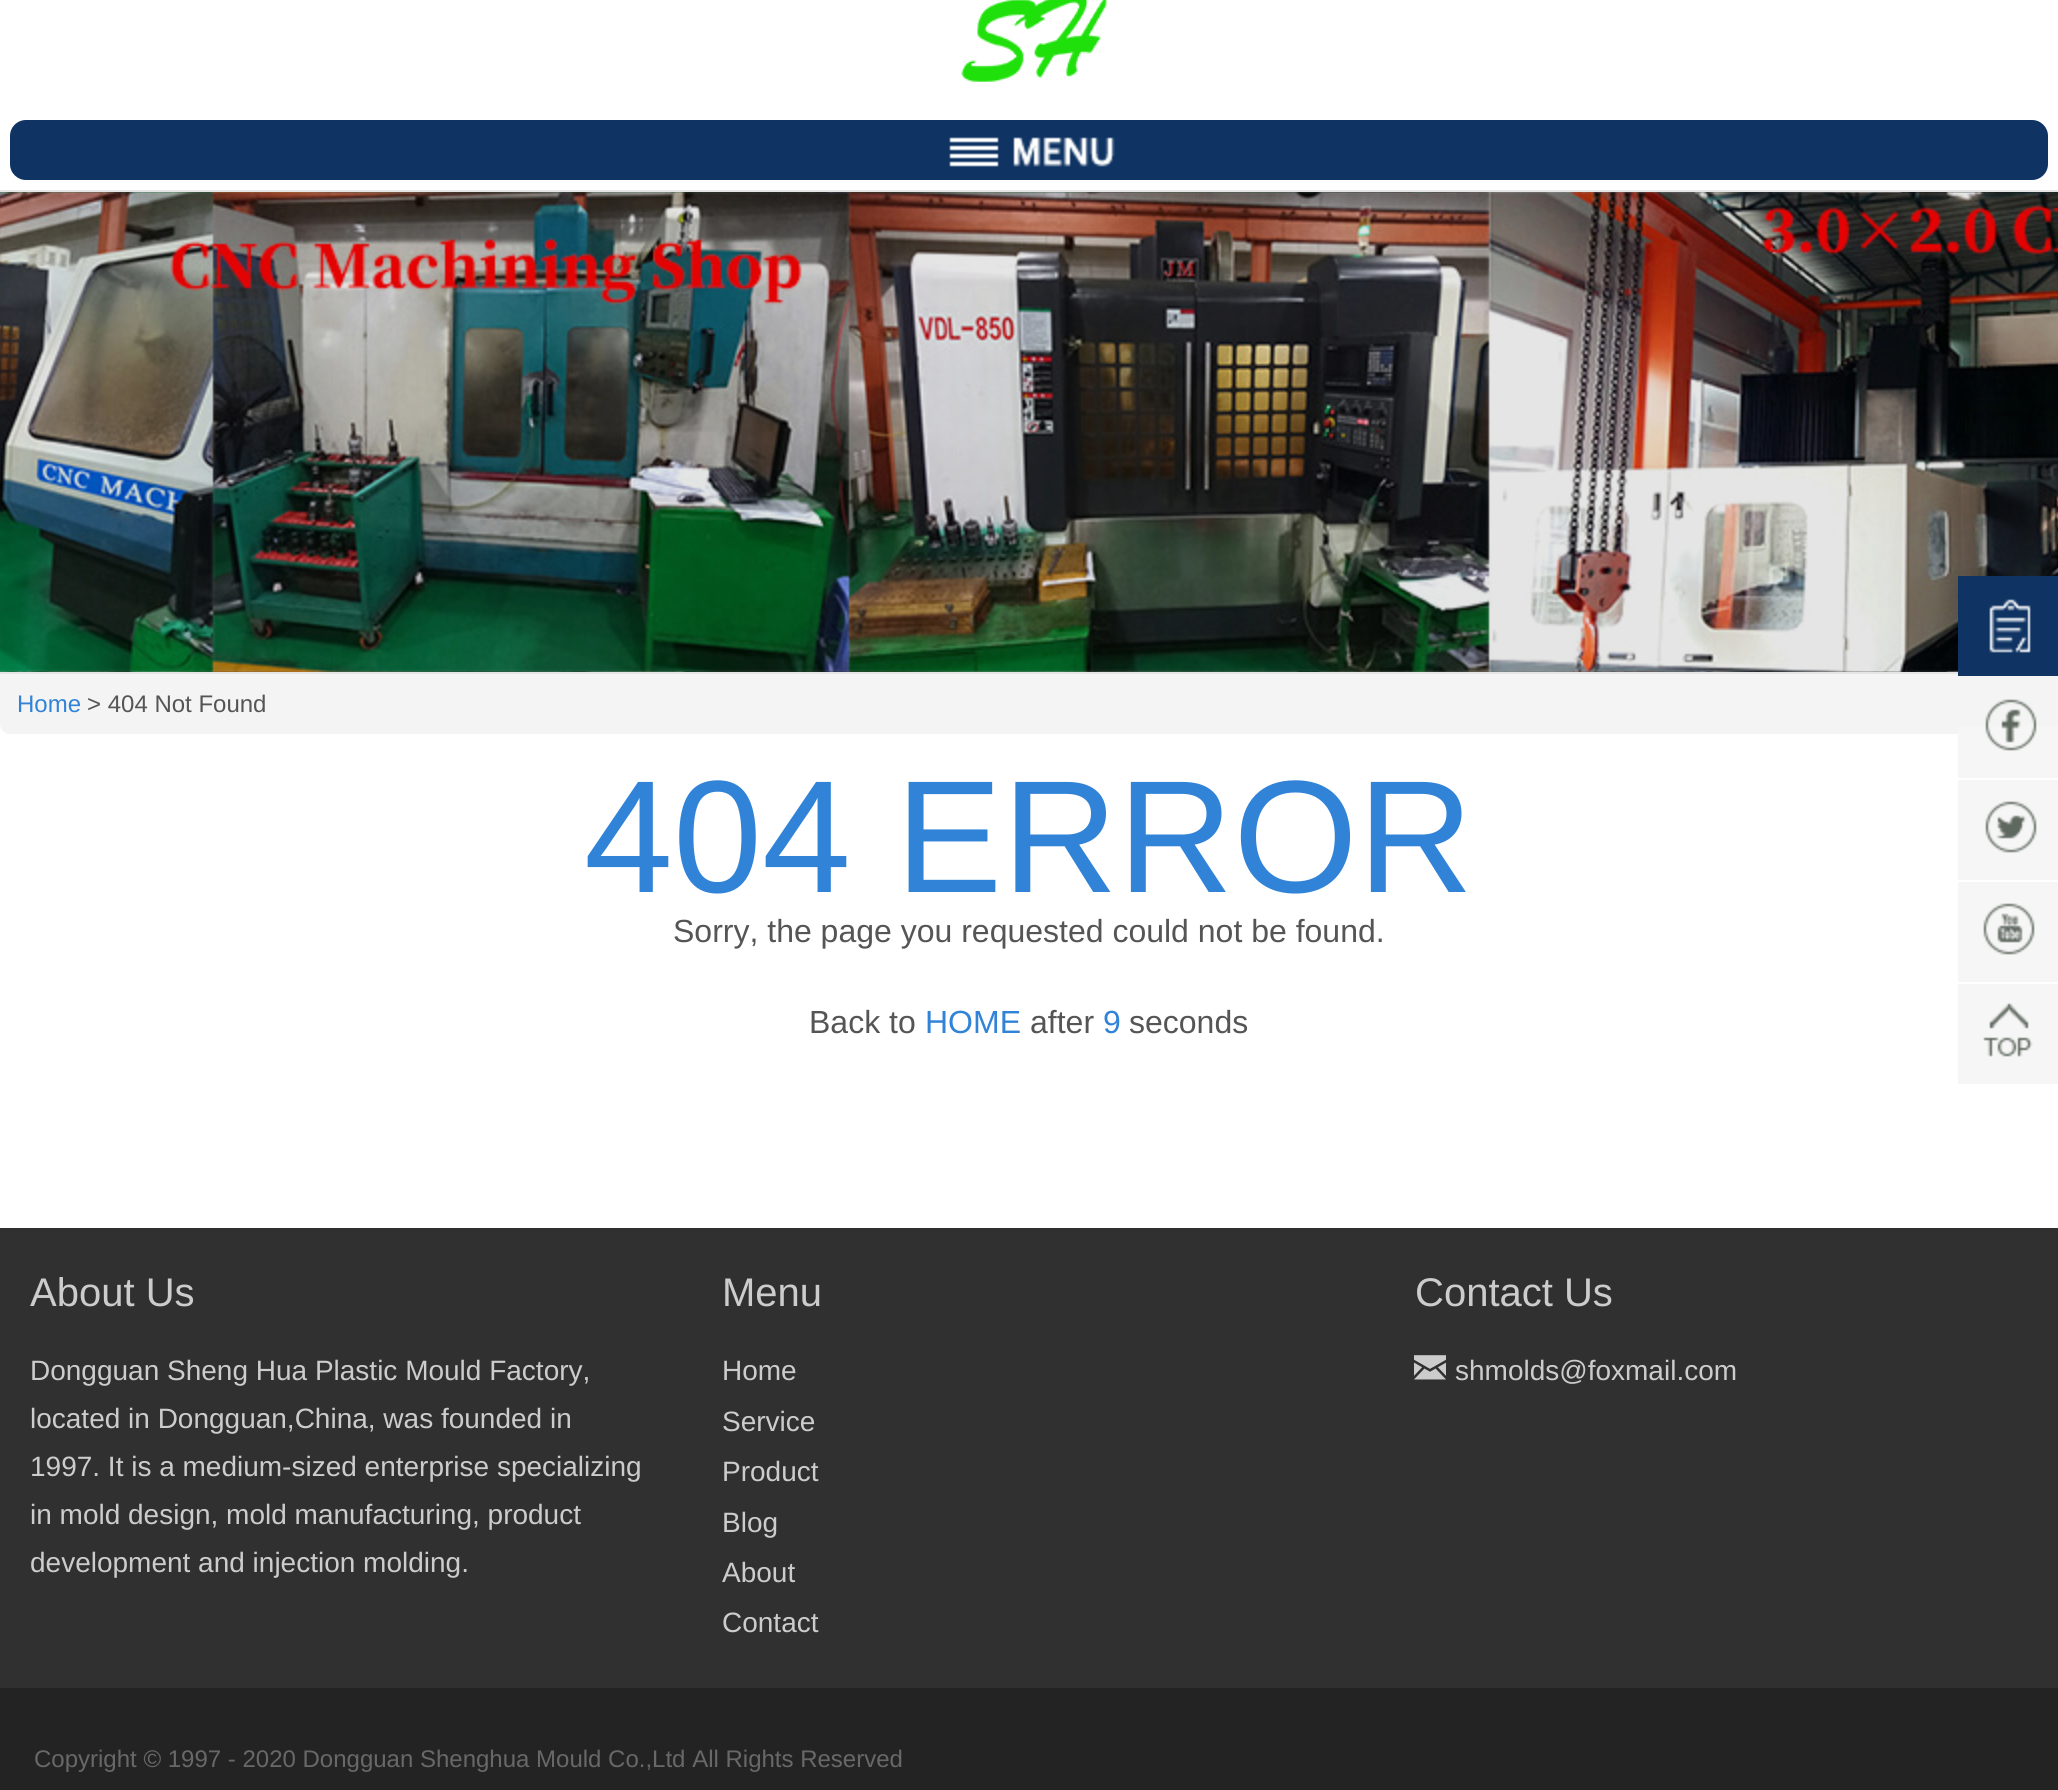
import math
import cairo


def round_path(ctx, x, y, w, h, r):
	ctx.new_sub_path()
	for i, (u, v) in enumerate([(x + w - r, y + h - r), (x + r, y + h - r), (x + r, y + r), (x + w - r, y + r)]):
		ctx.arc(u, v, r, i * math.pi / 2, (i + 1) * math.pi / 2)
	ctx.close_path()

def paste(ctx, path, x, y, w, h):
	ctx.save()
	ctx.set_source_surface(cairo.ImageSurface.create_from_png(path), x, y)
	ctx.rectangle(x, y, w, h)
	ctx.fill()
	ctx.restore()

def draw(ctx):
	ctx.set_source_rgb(1, 1, 1)
	ctx.paint()
	ctx.set_source_rgb(0.898, 0.898, 0.898)
	ctx.rectangle(0, 190, 2058, 2)
	ctx.fill()
	paste(ctx, 'media/1.png', 961, 0, 146, 82)
	ctx.set_source_rgb(0.059, 0.204, 0.388)
	round_path(ctx, 10, 120, 2038, 60, 16)
	ctx.fill()
	paste(ctx, 'media/2.png', 949, 137, 166, 30)
	paste(ctx, 'media/3.png', 0, 192, 2058, 480)
	ctx.set_source_rgb(0.898, 0.898, 0.898)
	ctx.rectangle(0, 672, 1958, 2)
	ctx.fill()
	ctx.set_source_rgb(0.957, 0.957, 0.957)
	ctx.new_path()
	ctx.move_to(0, 674)
	ctx.line_to(2058, 674)
	ctx.line_to(2058, 724)
	ctx.curve_to(2058, 729.5, 2053.5, 734, 2048, 734)
	ctx.line_to(10, 734)
	ctx.curve_to(4.5, 734, 0, 729.5, 0, 724)
	ctx.close_path()
	ctx.fill()
	ctx.select_font_face('Liberation Sans')
	ctx.set_font_size(24)
	ctx.set_source_rgb(0.192, 0.514, 0.843)
	ctx.move_to(17, 712)
	ctx.show_text('Home')
	ctx.set_source_rgb(0.333, 0.333, 0.333)
	ctx.move_to(87, 712)
	ctx.show_text('> 404 Not Found')
	ctx.set_font_size(160)
	ctx.set_source_rgb(0.192, 0.514, 0.843)
	ctx.move_to(584, 892)
	ctx.show_text('404 ERROR')
	ctx.set_font_size(32)
	ctx.set_source_rgb(0.333, 0.333, 0.333)
	ctx.move_to(673, 942)
	ctx.show_text('Sorry, the page you requested could not be found.')
	ctx.move_to(809, 1033)
	ctx.show_text('Back to')
	ctx.set_source_rgb(0.192, 0.514, 0.843)
	ctx.move_to(925, 1033)
	ctx.show_text('HOME')
	ctx.set_source_rgb(0.333, 0.333, 0.333)
	ctx.move_to(1030, 1033)
	ctx.show_text('after')
	ctx.set_source_rgb(0.192, 0.514, 0.843)
	ctx.move_to(1103, 1033)
	ctx.show_text('9')
	ctx.set_source_rgb(0.333, 0.333, 0.333)
	ctx.move_to(1129, 1033)
	ctx.show_text('seconds')
	ctx.set_source_rgb(0.188, 0.188, 0.188)
	ctx.rectangle(0, 1228, 2058, 460)
	ctx.fill()
	ctx.set_font_size(40)
	ctx.set_source_rgb(0.8, 0.8, 0.8)
	ctx.move_to(30, 1306)
	ctx.show_text('About Us')
	ctx.set_font_size(28)
	for x, y, s in [
		(30, 1380, 'Dongguan Sheng Hua Plastic Mould Factory,'),
		(30, 1428, 'located in Dongguan,China, was founded in'),
		(30, 1476, '1997. It is a medium-sized enterprise specializing'),
		(30, 1524, 'in mold design, mold manufacturing, product'),
		(30, 1572, 'development and injection molding.'),
	]:
		ctx.move_to(x, y)
		ctx.show_text(s)
	ctx.set_font_size(40)
	ctx.move_to(722, 1306)
	ctx.show_text('Menu')
	ctx.set_font_size(28)
	for x, y, s in [
		(722, 1380, 'Home'),
		(722, 1431, 'Service'),
		(722, 1481, 'Product'),
		(722, 1532, 'Blog'),
		(722, 1582, 'About'),
		(722, 1632, 'Contact'),
	]:
		ctx.move_to(x, y)
		ctx.show_text(s)
	ctx.set_font_size(40)
	ctx.move_to(1415, 1306)
	ctx.show_text('Contact Us')
	paste(ctx, 'media/4.png', 1414, 1355, 32, 25)
	ctx.set_font_size(28)
	ctx.move_to(1455, 1380)
	ctx.show_text('shmolds@foxmail.com')
	ctx.set_source_rgb(0.137, 0.137, 0.137)
	ctx.rectangle(0, 1688, 2058, 102)
	ctx.fill()
	ctx.set_font_size(24)
	ctx.set_source_rgb(0.408, 0.408, 0.408)
	ctx.move_to(34, 1767)
	ctx.show_text('Copyright © 1997 - 2020 Dongguan Shenghua Mould Co.,Ltd All Rights Reserved')
	ctx.set_source_rgb(0.059, 0.204, 0.388)
	ctx.rectangle(1958, 576, 100, 100)
	ctx.fill()
	paste(ctx, 'media/5.png', 1989, 599, 42, 54)
	ctx.set_source_rgb(0.961, 0.961, 0.961)
	ctx.rectangle(1958, 726, 100, 52)
	ctx.fill()
	paste(ctx, 'media/6.png', 1985, 699, 52, 52)
	ctx.rectangle(1958, 780, 100, 100)
	ctx.fill()
	paste(ctx, 'media/7.png', 1985, 801, 52, 52)
	ctx.rectangle(1958, 882, 100, 100)
	ctx.fill()
	paste(ctx, 'media/8.png', 1983, 903, 52, 52)
	ctx.rectangle(1958, 984, 100, 100)
	ctx.fill()
	paste(ctx, 'media/9.png', 1983, 1003, 50, 54)


surface = cairo.ImageSurface(cairo.FORMAT_RGB24, 2058, 1790)
ctx = cairo.Context(surface)
options = cairo.FontOptions()
options.set_hint_metrics(cairo.HINT_METRICS_OFF)
options.set_hint_style(cairo.HINT_STYLE_NONE)
ctx.set_font_options(options)
ctx.set_miter_limit(4)
draw(ctx)
surface.write_to_png('image.png')
